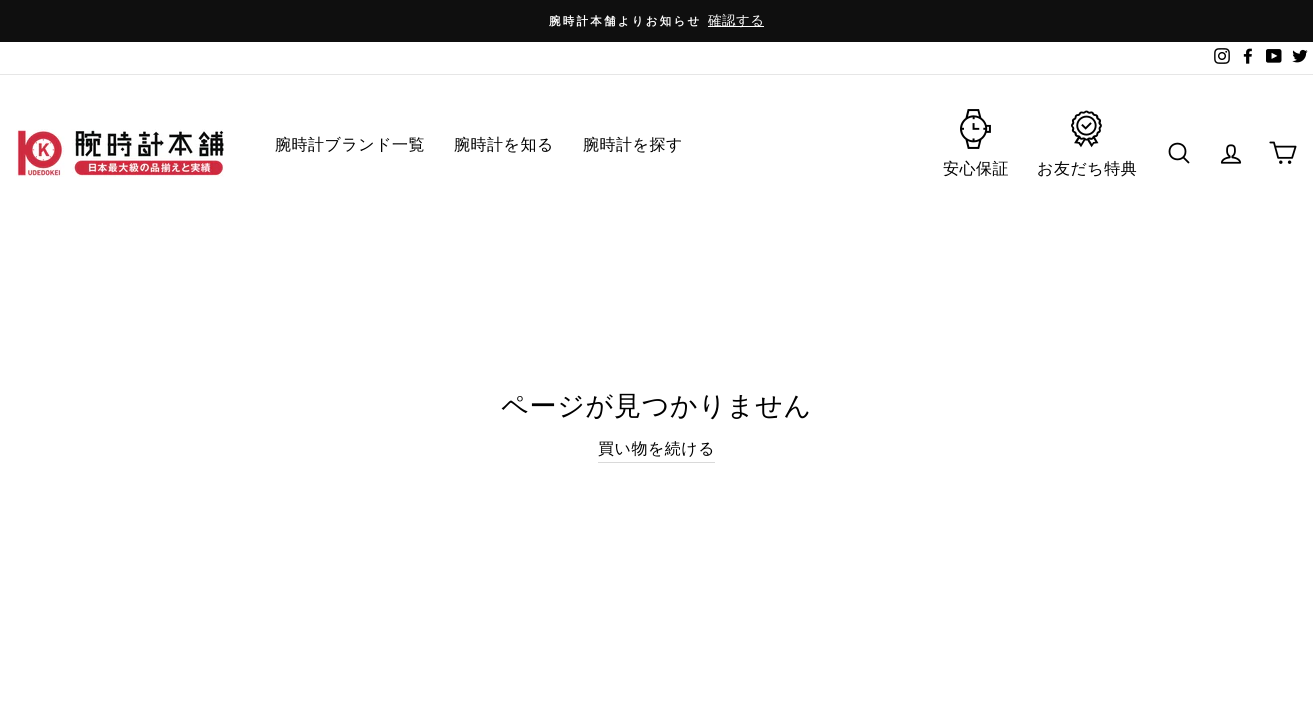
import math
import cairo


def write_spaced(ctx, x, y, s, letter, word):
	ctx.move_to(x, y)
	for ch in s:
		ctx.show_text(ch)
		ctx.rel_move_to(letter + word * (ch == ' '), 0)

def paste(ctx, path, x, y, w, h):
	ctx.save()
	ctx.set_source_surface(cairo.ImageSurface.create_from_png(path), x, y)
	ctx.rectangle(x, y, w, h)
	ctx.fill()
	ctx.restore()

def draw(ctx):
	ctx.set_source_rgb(1, 1, 1)
	ctx.paint()
	ctx.set_source_rgb(0.059, 0.059, 0.059)
	ctx.rectangle(0, 0, 1313, 42)
	ctx.fill()
	ctx.select_font_face('WenQuanYi Zen Hei', cairo.FONT_SLANT_NORMAL, cairo.FONT_WEIGHT_BOLD)
	ctx.set_font_size(11.5)
	ctx.set_source_rgb(1, 1, 1)
	write_spaced(ctx, 549, 25, '腕時計本舗よりお知らせ', 2.25, 0)
	ctx.rectangle(708, 26, 56, 1)
	ctx.fill()
	ctx.select_font_face('WenQuanYi Zen Hei Medium')
	ctx.set_font_size(13.5)
	write_spaced(ctx, 708, 25, '確認する', 0.5, 0)
	paste(ctx, 'media/1.png', 1214, 48, 16, 16)
	paste(ctx, 'media/2.png', 1243, 48, 9, 16)
	paste(ctx, 'media/3.png', 1266, 49, 16, 14)
	paste(ctx, 'media/4.png', 1292, 49, 16, 14)
	ctx.set_source_rgb(0.902, 0.902, 0.902)
	ctx.rectangle(0, 74, 1313, 1)
	ctx.fill()
	paste(ctx, 'media/5.png', 16, 129, 208, 48)
	ctx.set_font_size(16)
	ctx.set_source_rgb(0, 0, 0)
	for x, y, s in [
		(275, 150, '腕時計ブランド一覧'),
		(454, 150, '腕時計を知る'),
		(583, 150, '腕時計を探す'),
	]:
		write_spaced(ctx, x, y, s, 0.5, 0)
	ctx.new_path()
	ctx.move_to(1185.5, 151.5)
	ctx.curve_to(1185.5, 162, 1169.5, 162, 1169.5, 151.5)
	ctx.curve_to(1169.5, 141, 1185.5, 141, 1185.5, 151.5)
	ctx.close_path()
	ctx.move_to(1188.5, 162.5)
	ctx.line_to(1183.5, 157.5)
	ctx.set_line_width(1.8)
	ctx.set_line_cap(cairo.LINE_CAP_ROUND)
	ctx.set_line_join(cairo.LINE_JOIN_ROUND)
	ctx.stroke()
	paste(ctx, 'media/6.png', 1220, 144, 22, 20)
	paste(ctx, 'media/7.png', 1269, 141, 28, 23)
	paste(ctx, 'media/8.png', 960, 109, 31, 40)
	write_spaced(ctx, 943, 174, '安心保証', 0.5, 0)
	paste(ctx, 'media/9.png', 1071, 110, 31, 38)
	write_spaced(ctx, 1037, 174, 'お友だち特典', 0.5, 0)
	ctx.set_font_size(27)
	write_spaced(ctx, 501, 415, 'ページが見つかりません', 0.75, 0)
	ctx.set_source_rgb(0.851, 0.851, 0.851)
	ctx.rectangle(598, 462, 117, 1)
	ctx.fill()
	ctx.set_font_size(16)
	ctx.set_source_rgb(0, 0, 0)
	write_spaced(ctx, 598, 454, '買い物を続ける', 0.5, 0)


surface = cairo.ImageSurface(cairo.FORMAT_RGB24, 1313, 720)
ctx = cairo.Context(surface)
options = cairo.FontOptions()
options.set_hint_metrics(cairo.HINT_METRICS_OFF)
options.set_hint_style(cairo.HINT_STYLE_NONE)
ctx.set_font_options(options)
ctx.set_miter_limit(4)
draw(ctx)
surface.write_to_png('image.png')
